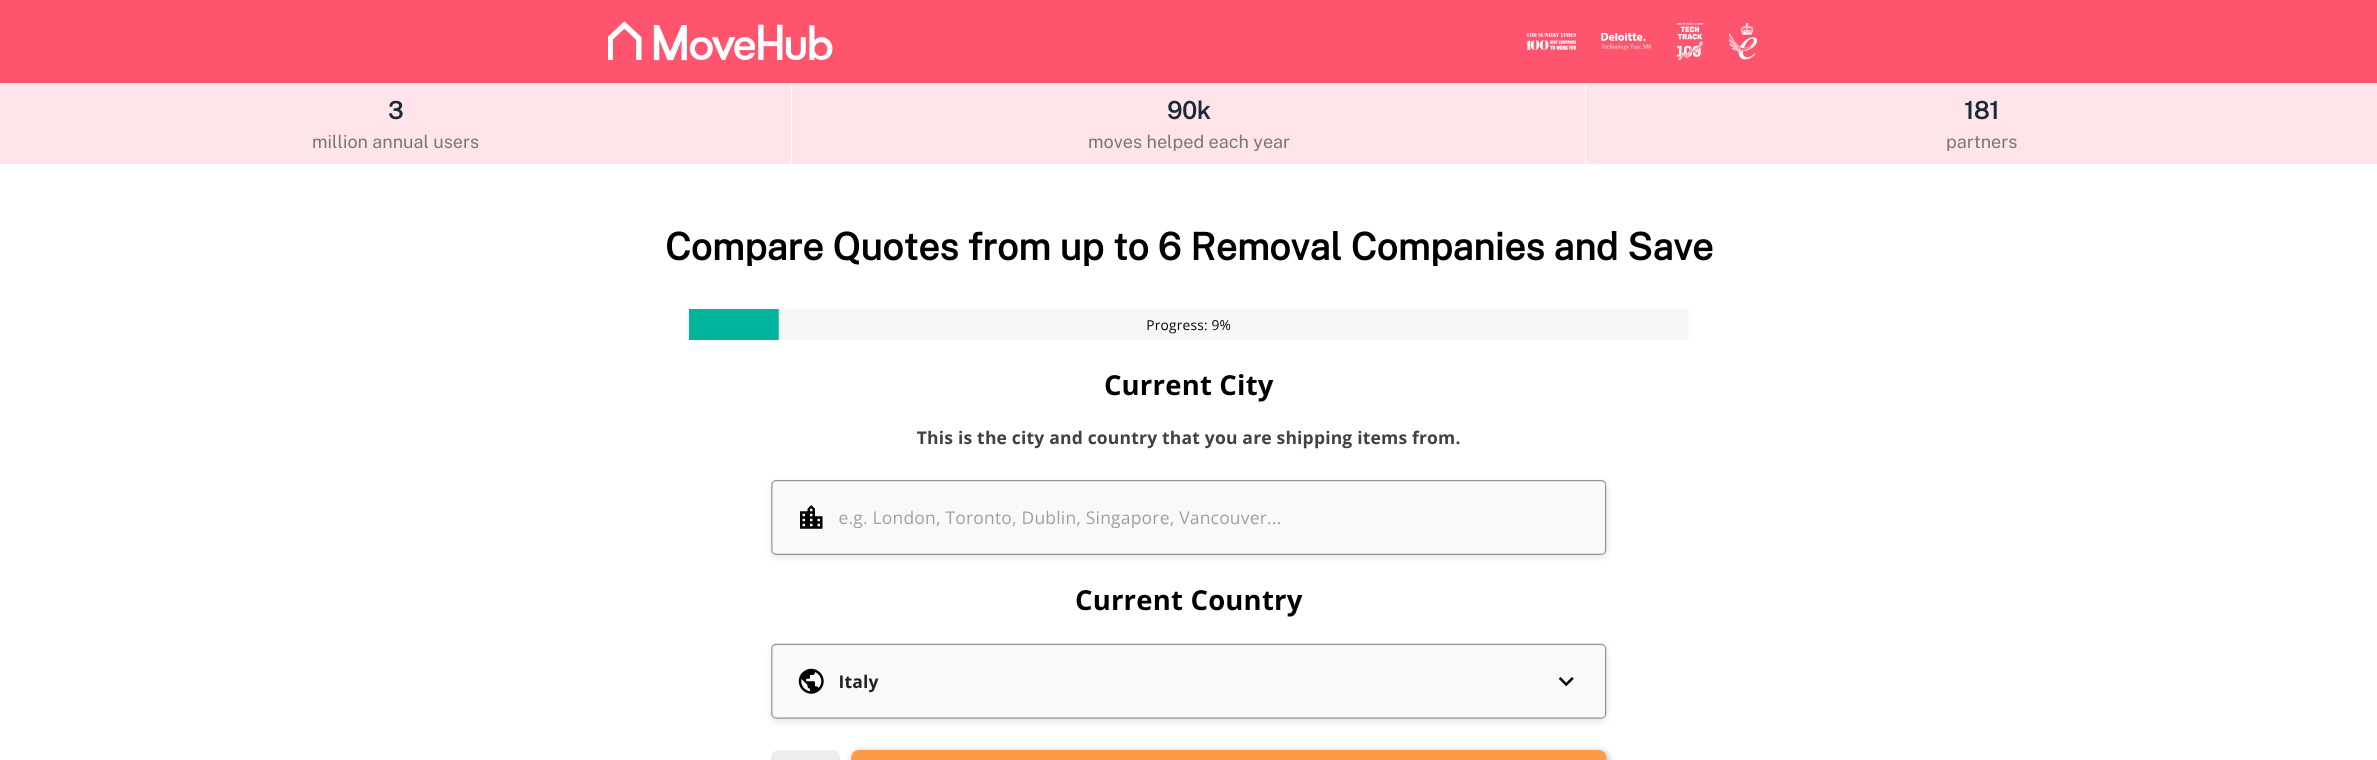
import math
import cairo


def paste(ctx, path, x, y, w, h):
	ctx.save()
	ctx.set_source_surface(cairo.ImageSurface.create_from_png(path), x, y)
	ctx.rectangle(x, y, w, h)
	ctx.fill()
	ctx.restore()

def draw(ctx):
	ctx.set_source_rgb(1, 1, 1)
	ctx.paint()
	ctx.set_source_rgb(1, 0.329, 0.427)
	ctx.rectangle(0, 0, 2377, 83)
	ctx.fill()
	paste(ctx, 'media/1.png', 608, 21, 225, 40)
	paste(ctx, 'media/2.png', 1526, 33, 50, 17)
	paste(ctx, 'media/3.png', 1601, 33, 50, 17)
	paste(ctx, 'media/4.png', 1676, 23, 28, 37)
	paste(ctx, 'media/5.png', 1729, 23, 28, 37)
	ctx.set_source_rgb(1, 0.898, 0.914)
	ctx.rectangle(0, 83, 2377, 81)
	ctx.fill()
	ctx.set_source_rgb(0.996, 0.996, 0.996)
	ctx.rectangle(791, 83, 1, 81)
	ctx.fill()
	ctx.select_font_face('Public Sans', cairo.FONT_SLANT_NORMAL, cairo.FONT_WEIGHT_BOLD)
	ctx.set_font_size(24)
	ctx.set_source_rgb(0.102, 0.165, 0.227)
	ctx.move_to(388, 119)
	ctx.show_text('3')
	ctx.select_font_face('Public Sans Thin')
	ctx.set_font_size(18)
	ctx.set_source_rgb(0.463, 0.463, 0.463)
	ctx.move_to(312, 148)
	ctx.show_text('million annual users')
	ctx.set_source_rgb(0.996, 0.996, 0.996)
	ctx.rectangle(1585, 83, 1, 81)
	ctx.fill()
	ctx.select_font_face('Public Sans', cairo.FONT_SLANT_NORMAL, cairo.FONT_WEIGHT_BOLD)
	ctx.set_font_size(24)
	ctx.set_source_rgb(0.102, 0.165, 0.227)
	ctx.move_to(1167, 119)
	ctx.show_text('90k')
	ctx.select_font_face('Public Sans Thin')
	ctx.set_font_size(18)
	ctx.set_source_rgb(0.463, 0.463, 0.463)
	ctx.move_to(1088, 148)
	ctx.show_text('moves helped each year')
	ctx.select_font_face('Public Sans', cairo.FONT_SLANT_NORMAL, cairo.FONT_WEIGHT_BOLD)
	ctx.set_font_size(24)
	ctx.set_source_rgb(0.102, 0.165, 0.227)
	ctx.move_to(1964, 119)
	ctx.show_text('181')
	ctx.select_font_face('Public Sans Thin')
	ctx.set_font_size(18)
	ctx.set_source_rgb(0.463, 0.463, 0.463)
	ctx.move_to(1946, 148)
	ctx.show_text('partners')
	ctx.select_font_face('Public Sans', cairo.FONT_SLANT_NORMAL, cairo.FONT_WEIGHT_BOLD)
	ctx.set_font_size(37.5)
	ctx.set_source_rgb(0, 0, 0)
	ctx.move_to(665, 260)
	ctx.show_text('Compare Quotes from up to 6 Removal Companies and Save')
	paste(ctx, 'media/6.png', 688, 308, 1001, 452)


surface = cairo.ImageSurface(cairo.FORMAT_RGB24, 2377, 760)
ctx = cairo.Context(surface)
options = cairo.FontOptions()
options.set_hint_metrics(cairo.HINT_METRICS_OFF)
options.set_hint_style(cairo.HINT_STYLE_NONE)
ctx.set_font_options(options)
ctx.set_miter_limit(4)
draw(ctx)
surface.write_to_png('image.png')
